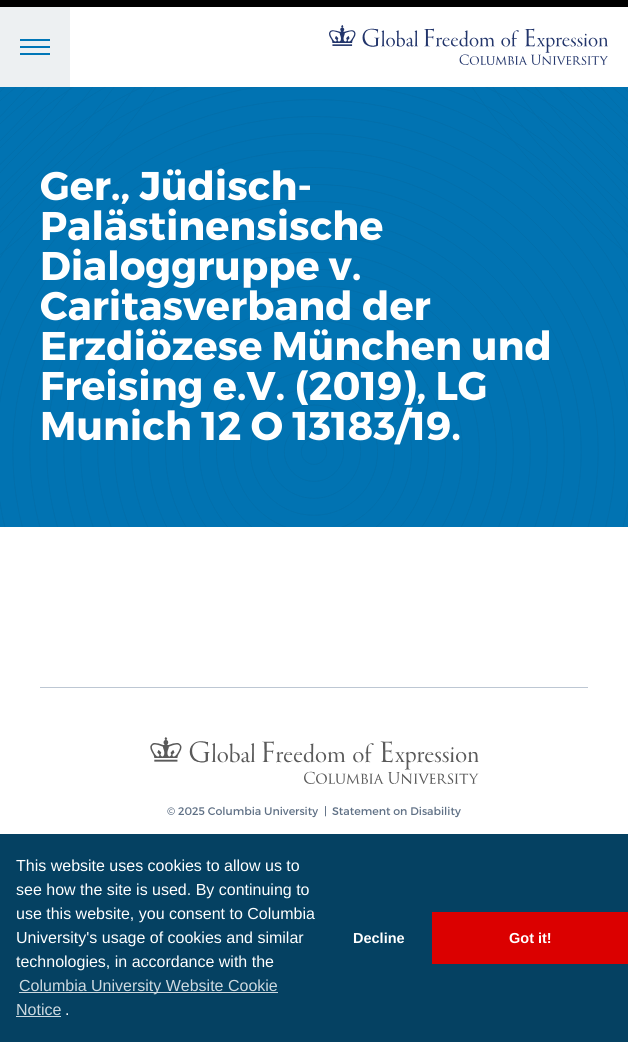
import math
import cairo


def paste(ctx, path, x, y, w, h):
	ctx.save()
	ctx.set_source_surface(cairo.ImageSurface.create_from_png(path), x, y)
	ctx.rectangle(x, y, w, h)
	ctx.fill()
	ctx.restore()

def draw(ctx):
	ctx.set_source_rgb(1, 1, 1)
	ctx.paint()
	ctx.set_source_rgb(0, 0, 0)
	ctx.rectangle(0, 0, 628, 7)
	ctx.fill()
	ctx.set_source_rgb(0.929, 0.941, 0.949)
	ctx.rectangle(0, 7, 70, 80)
	ctx.fill()
	ctx.set_source_rgb(0, 0.463, 0.718)
	ctx.rectangle(20, 39, 30, 2)
	ctx.rectangle(20, 53, 30, 2)
	ctx.rectangle(20, 46, 30, 2)
	ctx.fill()
	paste(ctx, 'media/1.png', 329, 25, 279, 40)
	ctx.set_source_rgb(0.004, 0.451, 0.698)
	ctx.rectangle(0, 87, 628, 440)
	ctx.fill()
	paste(ctx, 'media/2.png', 0, 87, 628, 440)
	ctx.select_font_face('Montserrat', cairo.FONT_SLANT_NORMAL, cairo.FONT_WEIGHT_BOLD)
	ctx.set_font_size(40)
	ctx.set_source_rgb(1, 1, 1)
	for x, y, s in [
		(40, 200, 'Ger., Jüdisch-'),
		(40, 240, 'Palästinensische'),
		(40, 280, 'Dialoggruppe v.'),
		(40, 320, 'Caritasverband der'),
		(40, 360, 'Erzdiözese München und'),
		(40, 400, 'Freising e.V. (2019), LG'),
		(40, 440, 'Munich 12 O 13183/19.'),
	]:
		ctx.move_to(x, y)
		ctx.show_text(s)
	ctx.set_source_rgb(0.741, 0.78, 0.827)
	ctx.rectangle(40, 687, 548, 1)
	ctx.fill()
	paste(ctx, 'media/3.png', 150, 737, 329, 47)
	ctx.select_font_face('Montserrat')
	ctx.set_font_size(11)
	ctx.set_source_rgb(0.373, 0.439, 0.522)
	for x, y, s in [
		(167, 815, '© 2025 Columbia University'),
		(324, 815, '|'),
		(332, 815, 'Statement on Disability'),
	]:
		ctx.move_to(x, y)
		ctx.show_text(s)
	ctx.set_source_rgb(0.02, 0.255, 0.384)
	ctx.rectangle(0, 834, 628, 208)
	ctx.fill()
	ctx.select_font_face('Liberation Sans')
	ctx.set_font_size(16)
	ctx.set_source_rgb(1, 1, 1)
	for x, y, s in [
		(16, 871, 'This website uses cookies to allow us to'),
		(16, 895, 'see how the site is used. By continuing to'),
		(16, 919, 'use this website, you consent to Columbia'),
		(16, 943, 'University\'s usage of cookies and similar'),
		(16, 967, 'technologies, in accordance with the'),
	]:
		ctx.move_to(x, y)
		ctx.show_text(s)
	ctx.set_source_rgb(0.804, 0.851, 0.878)
	ctx.rectangle(19, 992, 259, 1)
	ctx.fill()
	ctx.move_to(19, 991)
	ctx.show_text('Columbia University Website Cookie')
	ctx.move_to(16, 1015)
	ctx.show_text('Notice')
	ctx.rectangle(16, 1016, 45, 1)
	ctx.fill()
	ctx.set_source_rgb(1, 1, 1)
	ctx.move_to(65, 1015)
	ctx.show_text('.')
	ctx.select_font_face('Liberation Sans', cairo.FONT_SLANT_NORMAL, cairo.FONT_WEIGHT_BOLD)
	ctx.set_font_size(14.5)
	ctx.move_to(353, 943)
	ctx.show_text('Decline')
	ctx.set_source_rgb(0.859, 0, 0)
	ctx.rectangle(432, 912, 196, 52)
	ctx.fill()
	ctx.set_source_rgb(1, 1, 1)
	ctx.move_to(509, 943)
	ctx.show_text('Got it!')


surface = cairo.ImageSurface(cairo.FORMAT_RGB24, 628, 1042)
ctx = cairo.Context(surface)
options = cairo.FontOptions()
options.set_hint_metrics(cairo.HINT_METRICS_OFF)
options.set_hint_style(cairo.HINT_STYLE_NONE)
ctx.set_font_options(options)
ctx.set_miter_limit(4)
draw(ctx)
surface.write_to_png('image.png')
